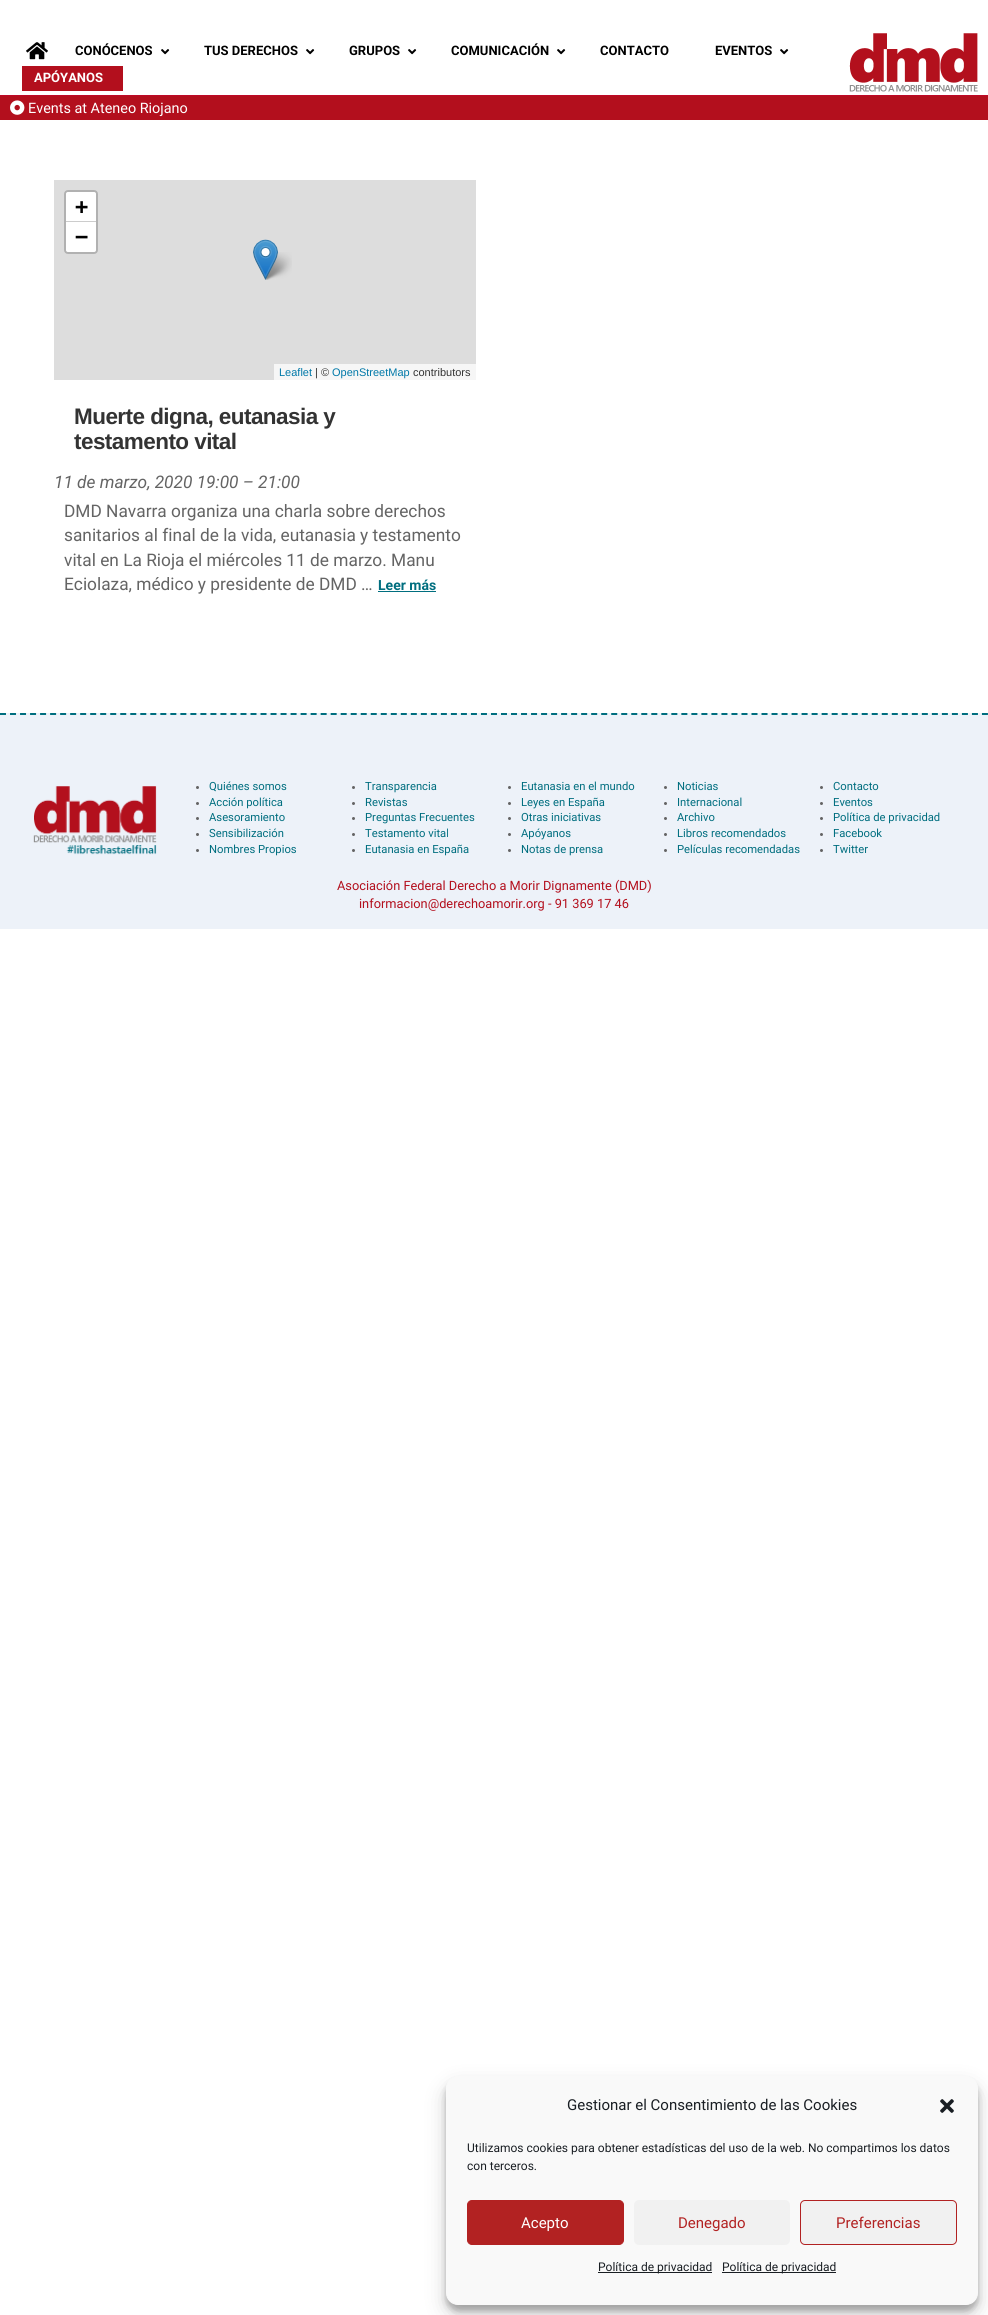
import math
import cairo


def write_spaced(ctx, x, y, s, letter, word):
	ctx.move_to(x, y)
	for ch in s:
		ctx.show_text(ch)
		ctx.rel_move_to(letter + word * (ch == ' '), 0)

def round_path(ctx, x, y, w, h, r):
	ctx.new_sub_path()
	for i, (u, v) in enumerate([(x + w - r, y + h - r), (x + r, y + h - r), (x + r, y + r), (x + w - r, y + r)]):
		ctx.arc(u, v, r, i * math.pi / 2, (i + 1) * math.pi / 2)
	ctx.close_path()

def blur_box(ctx, x, y, w, h, r, blur, alpha):
	ctx.push_group_with_content(cairo.CONTENT_ALPHA)
	ctx.set_operator(cairo.OPERATOR_SOURCE)
	for i in range(15, -16, -2):
		e = blur * i / 6
		if min(w, h) + 2 * e > 0:
			ctx.set_source_rgba(0, 0, 0, alpha * math.erfc((i - 1) / 8.5) / 2)
			round_path(ctx, x - e, y - e, w + 2 * e, h + 2 * e, max(0, min(r + e + blur * .6, min(w, h) / 2 + e)))
			ctx.fill()
	ctx.mask(ctx.pop_group())

def paste(ctx, path, x, y, w, h):
	ctx.save()
	ctx.set_source_surface(cairo.ImageSurface.create_from_png(path), x, y)
	ctx.rectangle(x, y, w, h)
	ctx.fill()
	ctx.restore()

def draw(ctx):
	ctx.set_source_rgb(1, 1, 1)
	ctx.paint()
	ctx.set_source_rgb(0.745, 0.039, 0.153)
	ctx.rectangle(0, 95, 988, 1)
	ctx.fill()
	paste(ctx, 'media/1.png', 26, 42, 22, 18)
	ctx.select_font_face('Roboto', cairo.FONT_SLANT_NORMAL, cairo.FONT_WEIGHT_BOLD)
	ctx.set_font_size(13)
	ctx.set_source_rgb(0, 0, 0)
	ctx.move_to(75, 55)
	ctx.show_text('CONÓCENOS')
	paste(ctx, 'media/2.png', 161, 49, 9, 6)
	ctx.move_to(204, 55)
	ctx.show_text('TUS DERECHOS')
	paste(ctx, 'media/2.png', 306, 49, 9, 6)
	ctx.move_to(349, 55)
	ctx.show_text('GRUPOS')
	paste(ctx, 'media/2.png', 408, 49, 9, 6)
	ctx.move_to(451, 55)
	ctx.show_text('COMUNICACIÓN')
	paste(ctx, 'media/2.png', 557, 49, 9, 6)
	ctx.move_to(600, 55)
	ctx.show_text('CONTACTO')
	ctx.move_to(715, 55)
	ctx.show_text('EVENTOS')
	paste(ctx, 'media/2.png', 780, 49, 9, 6)
	ctx.set_source_rgb(0.702, 0.059, 0.114)
	ctx.rectangle(22, 66, 101, 25)
	ctx.fill()
	ctx.set_source_rgb(1, 1, 1)
	ctx.move_to(34, 82)
	ctx.show_text('APÓYANOS')
	paste(ctx, 'media/3.png', 849, 33, 129, 59)
	ctx.set_source_rgb(0.702, 0.059, 0.114)
	ctx.rectangle(0, 96, 988, 24)
	ctx.fill()
	paste(ctx, 'media/4.png', 10, 100, 15, 15)
	ctx.select_font_face('Roboto')
	ctx.set_font_size(14.4)
	ctx.set_source_rgb(1, 1, 1)
	ctx.move_to(28, 113)
	ctx.show_text('Events at Ateneo Riojano')
	ctx.set_source_rgb(0.867, 0.867, 0.867)
	ctx.rectangle(54, 180, 422, 200)
	ctx.fill()
	round_path(ctx, 65, 191, 32, 62, 3)
	ctx.set_source_rgb(0.694, 0.694, 0.694)
	ctx.stroke()
	ctx.set_source_rgb(1, 1, 1)
	ctx.new_path()
	ctx.move_to(68, 192)
	ctx.line_to(94, 192)
	ctx.curve_to(95, 192, 96, 193, 96, 194)
	ctx.line_to(96, 222)
	ctx.line_to(66, 222)
	ctx.line_to(66, 194)
	ctx.curve_to(66, 193, 67, 192, 68, 192)
	ctx.close_path()
	ctx.fill()
	ctx.set_source_rgb(0.8, 0.8, 0.8)
	ctx.rectangle(66, 221, 30, 1)
	ctx.fill()
	ctx.select_font_face('DejaVu Sans Mono', cairo.FONT_SLANT_NORMAL, cairo.FONT_WEIGHT_BOLD)
	ctx.set_font_size(22)
	ctx.set_source_rgb(0, 0, 0)
	ctx.move_to(75, 214)
	ctx.show_text('+')
	ctx.set_source_rgb(1, 1, 1)
	ctx.new_path()
	ctx.move_to(66, 222)
	ctx.line_to(96, 222)
	ctx.line_to(96, 250)
	ctx.curve_to(96, 251, 95, 252, 94, 252)
	ctx.line_to(68, 252)
	ctx.curve_to(67, 252, 66, 251, 66, 250)
	ctx.close_path()
	ctx.fill()
	ctx.set_source_rgb(0, 0, 0)
	ctx.move_to(75, 244)
	ctx.show_text('−')
	ctx.set_source_rgb(0.961, 0.961, 0.961)
	ctx.rectangle(274, 364, 202, 16)
	ctx.fill()
	ctx.select_font_face('Liberation Sans')
	ctx.set_font_size(11)
	ctx.set_source_rgb(0, 0.471, 0.659)
	ctx.move_to(279, 376)
	ctx.show_text('Leaflet')
	ctx.set_source_rgb(0.2, 0.2, 0.2)
	ctx.move_to(315, 376)
	ctx.show_text('| ©')
	ctx.set_source_rgb(0, 0.471, 0.659)
	ctx.move_to(332, 376)
	ctx.show_text('OpenStreetMap')
	ctx.set_source_rgb(0.2, 0.2, 0.2)
	ctx.move_to(413, 376)
	ctx.show_text('contributors')
	paste(ctx, 'media/6.png', 263, 252, 29, 28)
	paste(ctx, 'media/5.png', 253, 239, 25, 41)
	ctx.select_font_face('Liberation Sans', cairo.FONT_SLANT_NORMAL, cairo.FONT_WEIGHT_BOLD)
	ctx.set_font_size(22.5)
	write_spaced(ctx, 74, 424, 'Muerte digna, eutanasia y', -0.55, 0)
	write_spaced(ctx, 74, 449, 'testamento vital', -0.55, 0)
	ctx.select_font_face('Roboto', cairo.FONT_SLANT_ITALIC)
	ctx.set_font_size(17.3)
	ctx.set_source_rgb(0.392, 0.392, 0.392)
	ctx.move_to(54, 488)
	ctx.show_text('11 de marzo, 2020 19:00 – 21:00')
	ctx.select_font_face('Roboto')
	for x, y, s in [
		(64, 517, 'DMD Navarra organiza una charla sobre derechos'),
		(64, 541, 'sanitarios al final de la vida, eutanasia y testamento'),
		(64, 566, 'vital en La Rioja el miércoles 11 de marzo. Manu'),
		(64, 590, 'Eciolaza, médico y presidente de DMD …'),
	]:
		ctx.move_to(x, y)
		ctx.show_text(s)
	ctx.select_font_face('Roboto', cairo.FONT_SLANT_NORMAL, cairo.FONT_WEIGHT_BOLD)
	ctx.set_font_size(14)
	ctx.set_source_rgb(0, 0.431, 0.498)
	ctx.move_to(378, 590)
	ctx.show_text('Leer más')
	ctx.rectangle(378, 591, 58, 1)
	ctx.fill()
	ctx.set_source_rgb(0.929, 0.949, 0.976)
	ctx.rectangle(0, 713, 988, 216)
	ctx.fill()
	ctx.new_path()
	ctx.move_to(0, 714)
	ctx.line_to(988, 714)
	ctx.set_source_rgb(0, 0.431, 0.498)
	ctx.set_dash([6, 4.02])
	ctx.stroke()
	paste(ctx, 'media/7.png', 33, 786, 124, 69)
	ctx.set_source_rgb(0.392, 0.392, 0.392)
	ctx.arc(197.5, 787.5, 1.5, 0, 2 * math.pi)
	ctx.fill()
	ctx.select_font_face('Roboto')
	ctx.set_font_size(11.25)
	ctx.set_source_rgb(0, 0.431, 0.498)
	ctx.move_to(209, 790)
	ctx.show_text('Quiénes somos')
	ctx.set_source_rgb(0.392, 0.392, 0.392)
	ctx.new_path()
	ctx.arc(353.5, 787.5, 1.5, 0, 2 * math.pi)
	ctx.fill()
	ctx.set_source_rgb(0, 0.431, 0.498)
	ctx.move_to(365, 790)
	ctx.show_text('Transparencia')
	ctx.set_source_rgb(0.392, 0.392, 0.392)
	ctx.new_path()
	ctx.arc(509.5, 787.5, 1.5, 0, 2 * math.pi)
	ctx.fill()
	ctx.set_source_rgb(0, 0.431, 0.498)
	ctx.move_to(521, 790)
	ctx.show_text('Eutanasia en el mundo')
	ctx.set_source_rgb(0.392, 0.392, 0.392)
	ctx.new_path()
	ctx.arc(665.5, 787.5, 1.5, 0, 2 * math.pi)
	ctx.fill()
	ctx.set_source_rgb(0, 0.431, 0.498)
	ctx.move_to(677, 790)
	ctx.show_text('Noticias')
	ctx.set_source_rgb(0.392, 0.392, 0.392)
	ctx.new_path()
	ctx.arc(821.5, 787.5, 1.5, 0, 2 * math.pi)
	ctx.fill()
	ctx.set_source_rgb(0, 0.431, 0.498)
	ctx.move_to(833, 790)
	ctx.show_text('Contacto')
	ctx.set_source_rgb(0.392, 0.392, 0.392)
	ctx.new_path()
	ctx.arc(197.5, 803.5, 1.5, 0, 2 * math.pi)
	ctx.fill()
	ctx.set_source_rgb(0, 0.431, 0.498)
	ctx.move_to(209, 806)
	ctx.show_text('Acción política')
	ctx.set_source_rgb(0.392, 0.392, 0.392)
	ctx.new_path()
	ctx.arc(353.5, 803.5, 1.5, 0, 2 * math.pi)
	ctx.fill()
	ctx.set_source_rgb(0, 0.431, 0.498)
	ctx.move_to(365, 806)
	ctx.show_text('Revistas')
	ctx.set_source_rgb(0.392, 0.392, 0.392)
	ctx.new_path()
	ctx.arc(509.5, 803.5, 1.5, 0, 2 * math.pi)
	ctx.fill()
	ctx.set_source_rgb(0, 0.431, 0.498)
	ctx.move_to(521, 806)
	ctx.show_text('Leyes en España')
	ctx.set_source_rgb(0.392, 0.392, 0.392)
	ctx.new_path()
	ctx.arc(665.5, 803.5, 1.5, 0, 2 * math.pi)
	ctx.fill()
	ctx.set_source_rgb(0, 0.431, 0.498)
	ctx.move_to(677, 806)
	ctx.show_text('Internacional')
	ctx.set_source_rgb(0.392, 0.392, 0.392)
	ctx.new_path()
	ctx.arc(821.5, 803.5, 1.5, 0, 2 * math.pi)
	ctx.fill()
	ctx.set_source_rgb(0, 0.431, 0.498)
	ctx.move_to(833, 806)
	ctx.show_text('Eventos')
	ctx.set_source_rgb(0.392, 0.392, 0.392)
	ctx.new_path()
	ctx.arc(197.5, 818.5, 1.5, 0, 2 * math.pi)
	ctx.fill()
	ctx.set_source_rgb(0, 0.431, 0.498)
	ctx.move_to(209, 821)
	ctx.show_text('Asesoramiento')
	ctx.set_source_rgb(0.392, 0.392, 0.392)
	ctx.new_path()
	ctx.arc(353.5, 818.5, 1.5, 0, 2 * math.pi)
	ctx.fill()
	ctx.set_source_rgb(0, 0.431, 0.498)
	ctx.move_to(365, 821)
	ctx.show_text('Preguntas Frecuentes')
	ctx.set_source_rgb(0.392, 0.392, 0.392)
	ctx.new_path()
	ctx.arc(509.5, 818.5, 1.5, 0, 2 * math.pi)
	ctx.fill()
	ctx.set_source_rgb(0, 0.431, 0.498)
	ctx.move_to(521, 821)
	ctx.show_text('Otras iniciativas')
	ctx.set_source_rgb(0.392, 0.392, 0.392)
	ctx.new_path()
	ctx.arc(665.5, 818.5, 1.5, 0, 2 * math.pi)
	ctx.fill()
	ctx.set_source_rgb(0, 0.431, 0.498)
	ctx.move_to(677, 821)
	ctx.show_text('Archivo')
	ctx.set_source_rgb(0.392, 0.392, 0.392)
	ctx.new_path()
	ctx.arc(821.5, 818.5, 1.5, 0, 2 * math.pi)
	ctx.fill()
	ctx.set_source_rgb(0, 0.431, 0.498)
	ctx.move_to(833, 821)
	ctx.show_text('Política de privacidad')
	ctx.set_source_rgb(0.392, 0.392, 0.392)
	ctx.new_path()
	ctx.arc(197.5, 834.5, 1.5, 0, 2 * math.pi)
	ctx.fill()
	ctx.set_source_rgb(0, 0.431, 0.498)
	ctx.move_to(209, 837)
	ctx.show_text('Sensibilización')
	ctx.set_source_rgb(0.392, 0.392, 0.392)
	ctx.new_path()
	ctx.arc(353.5, 834.5, 1.5, 0, 2 * math.pi)
	ctx.fill()
	ctx.set_source_rgb(0, 0.431, 0.498)
	ctx.move_to(365, 837)
	ctx.show_text('Testamento vital')
	ctx.set_source_rgb(0.392, 0.392, 0.392)
	ctx.new_path()
	ctx.arc(509.5, 834.5, 1.5, 0, 2 * math.pi)
	ctx.fill()
	ctx.set_source_rgb(0, 0.431, 0.498)
	ctx.move_to(521, 837)
	ctx.show_text('Apóyanos')
	ctx.set_source_rgb(0.392, 0.392, 0.392)
	ctx.new_path()
	ctx.arc(665.5, 834.5, 1.5, 0, 2 * math.pi)
	ctx.fill()
	ctx.set_source_rgb(0, 0.431, 0.498)
	ctx.move_to(677, 837)
	ctx.show_text('Libros recomendados')
	ctx.set_source_rgb(0.392, 0.392, 0.392)
	ctx.new_path()
	ctx.arc(821.5, 834.5, 1.5, 0, 2 * math.pi)
	ctx.fill()
	ctx.set_source_rgb(0, 0.431, 0.498)
	ctx.move_to(833, 837)
	ctx.show_text('Facebook')
	ctx.set_source_rgb(0.392, 0.392, 0.392)
	ctx.new_path()
	ctx.arc(197.5, 850.5, 1.5, 0, 2 * math.pi)
	ctx.fill()
	ctx.set_source_rgb(0, 0.431, 0.498)
	ctx.move_to(209, 853)
	ctx.show_text('Nombres Propios')
	ctx.set_source_rgb(0.392, 0.392, 0.392)
	ctx.new_path()
	ctx.arc(353.5, 850.5, 1.5, 0, 2 * math.pi)
	ctx.fill()
	ctx.set_source_rgb(0, 0.431, 0.498)
	ctx.move_to(365, 853)
	ctx.show_text('Eutanasia en España')
	ctx.set_source_rgb(0.392, 0.392, 0.392)
	ctx.new_path()
	ctx.arc(509.5, 850.5, 1.5, 0, 2 * math.pi)
	ctx.fill()
	ctx.set_source_rgb(0, 0.431, 0.498)
	ctx.move_to(521, 853)
	ctx.show_text('Notas de prensa')
	ctx.set_source_rgb(0.392, 0.392, 0.392)
	ctx.new_path()
	ctx.arc(665.5, 850.5, 1.5, 0, 2 * math.pi)
	ctx.fill()
	ctx.set_source_rgb(0, 0.431, 0.498)
	ctx.move_to(677, 853)
	ctx.show_text('Películas recomendadas')
	ctx.set_source_rgb(0.392, 0.392, 0.392)
	ctx.new_path()
	ctx.arc(821.5, 850.5, 1.5, 0, 2 * math.pi)
	ctx.fill()
	ctx.set_source_rgb(0, 0.431, 0.498)
	ctx.move_to(833, 853)
	ctx.show_text('Twitter')
	ctx.set_font_size(12.8)
	ctx.set_source_rgb(0.702, 0.059, 0.114)
	ctx.move_to(337, 890)
	ctx.show_text('Asociación Federal Derecho a Morir Dignamente (DMD)')
	ctx.move_to(359, 908)
	ctx.show_text('informacion@derechoamorir.org - 91 369 17 46')
	ctx.set_source_rgb(0, 0, 0)
	blur_box(ctx, 446, 2082, 532, 229, 12, 3, 0.23)
	blur_box(ctx, 446, 2086, 532, 229, 12, 10, 0.19)
	ctx.set_source_rgb(0.976, 0.976, 0.976)
	round_path(ctx, 446.5, 2076.5, 531, 228, 11.5)
	ctx.fill_preserve()
	ctx.set_line_width(1)
	ctx.set_dash([])
	ctx.stroke()
	ctx.set_font_size(15)
	ctx.set_source_rgb(0.098, 0.118, 0.137)
	ctx.move_to(567, 2110)
	ctx.show_text('Gestionar el Consentimiento de las Cookies')
	paste(ctx, 'media/8.png', 940, 2099, 14, 14)
	ctx.set_font_size(12)
	ctx.move_to(467, 2152)
	ctx.show_text('Utilizamos cookies para obtener estadísticas del uso de la web. No compartimos los datos')
	ctx.move_to(467, 2170)
	ctx.show_text('con terceros.')
	ctx.set_source_rgb(0.698, 0.133, 0.133)
	round_path(ctx, 467.5, 2200.5, 156, 44, 4.5)
	ctx.fill_preserve()
	ctx.stroke()
	ctx.set_font_size(15)
	ctx.set_source_rgb(1, 1, 1)
	ctx.move_to(521, 2228)
	ctx.show_text('Acepto')
	ctx.set_source_rgb(0.945, 0.945, 0.945)
	round_path(ctx, 634, 2200, 156, 45, 5)
	ctx.fill()
	ctx.set_source_rgb(0.698, 0.133, 0.133)
	ctx.move_to(678, 2228)
	ctx.show_text('Denegado')
	ctx.set_source_rgb(0.945, 0.945, 0.945)
	round_path(ctx, 800.5, 2200.5, 156, 44, 4.5)
	ctx.fill_preserve()
	ctx.set_source_rgb(0.698, 0.133, 0.133)
	ctx.stroke()
	ctx.move_to(836, 2228)
	ctx.show_text('Preferencias')
	ctx.set_source_rgb(0.098, 0.118, 0.137)
	ctx.rectangle(598, 2272, 114, 1)
	ctx.fill()
	ctx.set_font_size(12)
	ctx.move_to(598, 2271)
	ctx.show_text('Política de privacidad')
	ctx.rectangle(722, 2272, 114, 1)
	ctx.fill()
	ctx.move_to(722, 2271)
	ctx.show_text('Política de privacidad')


surface = cairo.ImageSurface(cairo.FORMAT_RGB24, 988, 2315)
ctx = cairo.Context(surface)
options = cairo.FontOptions()
options.set_hint_metrics(cairo.HINT_METRICS_OFF)
options.set_hint_style(cairo.HINT_STYLE_NONE)
ctx.set_font_options(options)
ctx.set_miter_limit(4)
draw(ctx)
surface.write_to_png('image.png')
